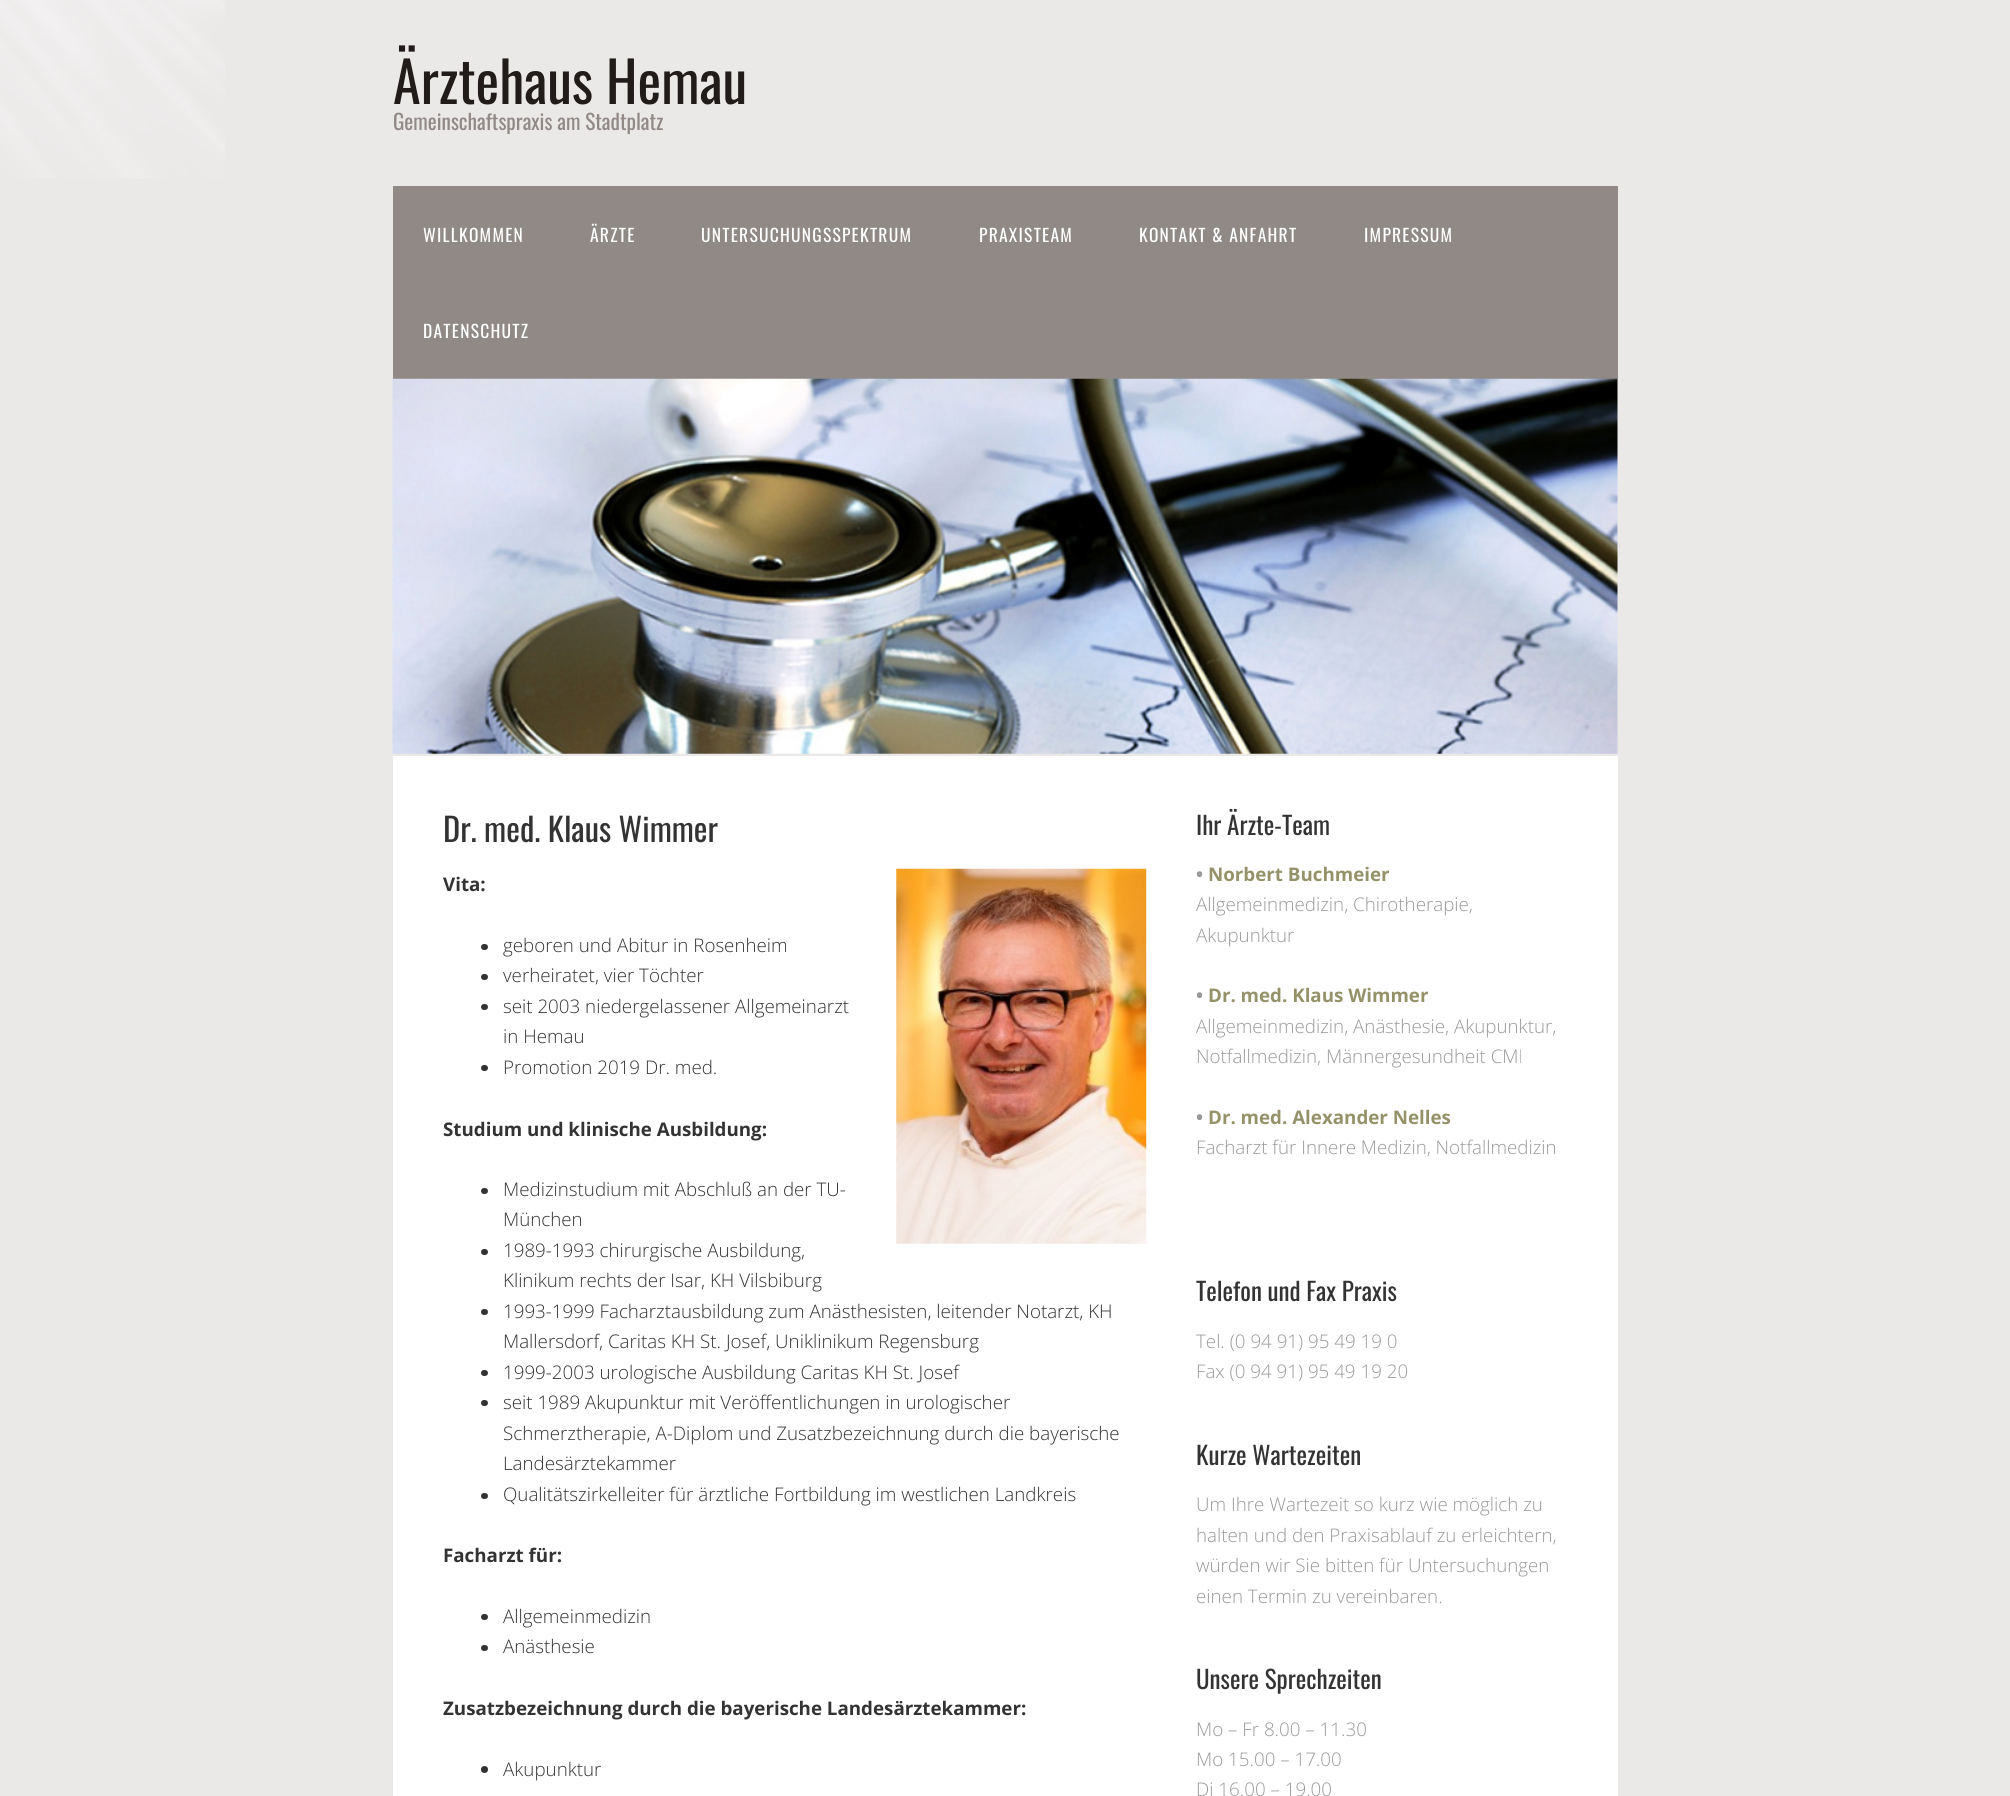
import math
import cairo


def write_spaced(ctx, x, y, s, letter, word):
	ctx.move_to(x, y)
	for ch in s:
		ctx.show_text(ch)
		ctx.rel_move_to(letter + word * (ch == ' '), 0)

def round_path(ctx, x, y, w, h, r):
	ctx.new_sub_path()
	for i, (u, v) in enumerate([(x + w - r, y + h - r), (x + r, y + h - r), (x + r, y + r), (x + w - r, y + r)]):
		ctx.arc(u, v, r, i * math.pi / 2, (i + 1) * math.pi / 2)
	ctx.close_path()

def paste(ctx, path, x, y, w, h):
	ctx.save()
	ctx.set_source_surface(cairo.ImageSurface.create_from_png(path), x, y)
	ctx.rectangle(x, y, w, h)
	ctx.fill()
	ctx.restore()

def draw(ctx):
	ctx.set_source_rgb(0.918, 0.91, 0.91)
	ctx.paint()
	paste(ctx, 'media/1.png', 0, 0, 225, 179)
	ctx.select_font_face('Oswald')
	ctx.set_font_size(56.25)
	ctx.set_source_rgb(0.129, 0.106, 0.102)
	ctx.move_to(393, 104)
	ctx.show_text('Ärztehaus Hemau')
	ctx.set_font_size(21.25)
	ctx.set_source_rgb(0.565, 0.537, 0.525)
	ctx.move_to(393, 130)
	ctx.show_text('Gemeinschaftspraxis am Stadtplatz')
	ctx.rectangle(393, 186, 1225, 193)
	ctx.fill()
	ctx.set_font_size(17.5)
	ctx.set_source_rgb(1, 1, 1)
	for x, y, s in [
		(423, 242, 'WILLKOMMEN'),
		(590, 242, 'ÄRZTE'),
		(701, 242, 'UNTERSUCHUNGSSPEKTRUM'),
		(979, 242, 'PRAXISTEAM'),
		(1139, 242, 'KONTAKT & ANFAHRT'),
		(1364, 242, 'IMPRESSUM'),
		(423, 338, 'DATENSCHUTZ'),
	]:
		write_spaced(ctx, x, y, s, 1.25, 0)
	paste(ctx, 'media/2.png', 392, 378, 1226, 376)
	ctx.rectangle(393, 756, 1225, 1040)
	ctx.fill()
	ctx.set_font_size(32.5)
	ctx.set_source_rgb(0.2, 0.2, 0.2)
	ctx.move_to(443, 842)
	ctx.show_text('Dr. med. Klaus Wimmer')
	ctx.select_font_face('Open Sans', cairo.FONT_SLANT_NORMAL, cairo.FONT_WEIGHT_BOLD)
	ctx.set_font_size(18.75)
	ctx.move_to(443, 891)
	ctx.show_text('Vita:')
	paste(ctx, 'media/3.png', 896, 868, 251, 376)
	round_path(ctx, 481, 944, 7, 6, 3)
	ctx.fill()
	ctx.select_font_face('Open Sans Light')
	ctx.move_to(503, 952)
	ctx.show_text('geboren und Abitur in Rosenheim')
	round_path(ctx, 481, 974, 7, 6, 3)
	ctx.fill()
	ctx.move_to(503, 982)
	ctx.show_text('verheiratet, vier Töchter')
	round_path(ctx, 481, 1004, 7, 6, 3)
	ctx.fill()
	ctx.move_to(503, 1013)
	ctx.show_text('seit 2003 niedergelassener Allgemeinarzt')
	ctx.move_to(503, 1043)
	ctx.show_text('in Hemau')
	round_path(ctx, 481, 1065, 7, 6, 3)
	ctx.fill()
	ctx.move_to(503, 1074)
	ctx.show_text('Promotion 2019 Dr. med.')
	ctx.select_font_face('Open Sans', cairo.FONT_SLANT_NORMAL, cairo.FONT_WEIGHT_BOLD)
	ctx.move_to(443, 1136)
	ctx.show_text('Studium und klinische Ausbildung:')
	round_path(ctx, 481, 1188, 7, 6, 3)
	ctx.fill()
	ctx.select_font_face('Open Sans Light')
	ctx.move_to(503, 1196)
	ctx.show_text('Medizinstudium mit Abschluß an der TU-')
	ctx.move_to(503, 1226)
	ctx.show_text('München')
	round_path(ctx, 481, 1249, 7, 6, 3)
	ctx.fill()
	ctx.move_to(503, 1257)
	ctx.show_text('1989-1993 chirurgische Ausbildung,')
	ctx.move_to(503, 1287)
	ctx.show_text('Klinikum rechts der Isar, KH Vilsbiburg')
	round_path(ctx, 481, 1309, 7, 6, 3)
	ctx.fill()
	ctx.move_to(503, 1318)
	ctx.show_text('1993-1999 Facharztausbildung zum Anästhesisten, leitender Notarzt, KH')
	ctx.move_to(503, 1348)
	ctx.show_text('Mallersdorf, Caritas KH St. Josef, Uniklinikum Regensburg')
	round_path(ctx, 481, 1370, 7, 6, 3)
	ctx.fill()
	ctx.move_to(503, 1379)
	ctx.show_text('1999-2003 urologische Ausbildung Caritas KH St. Josef')
	round_path(ctx, 481, 1400, 7, 6, 3)
	ctx.fill()
	for x, y, s in [
		(503, 1409, 'seit 1989 Akupunktur mit Veröffentlichungen in urologischer'),
		(503, 1440, 'Schmerztherapie, A-Diplom und Zusatzbezeichnung durch die bayerische'),
		(503, 1470, 'Landesärztekammer'),
	]:
		ctx.move_to(x, y)
		ctx.show_text(s)
	round_path(ctx, 481, 1493, 7, 6, 3)
	ctx.fill()
	ctx.move_to(503, 1501)
	ctx.show_text('Qualitätszirkelleiter für ärztliche Fortbildung im westlichen Landkreis')
	ctx.select_font_face('Open Sans', cairo.FONT_SLANT_NORMAL, cairo.FONT_WEIGHT_BOLD)
	ctx.move_to(443, 1562)
	ctx.show_text('Facharzt für:')
	round_path(ctx, 481, 1614, 7, 6, 3)
	ctx.fill()
	ctx.select_font_face('Open Sans Light')
	ctx.move_to(503, 1623)
	ctx.show_text('Allgemeinmedizin')
	round_path(ctx, 481, 1645, 7, 6, 3)
	ctx.fill()
	ctx.move_to(503, 1653)
	ctx.show_text('Anästhesie')
	ctx.select_font_face('Open Sans', cairo.FONT_SLANT_NORMAL, cairo.FONT_WEIGHT_BOLD)
	ctx.move_to(443, 1715)
	ctx.show_text('Zusatzbezeichnung durch die bayerische Landesärztekammer:')
	ctx.new_path()
	ctx.arc(484.5, 1769.5, 3.5, 0, 2 * math.pi)
	ctx.fill()
	ctx.select_font_face('Open Sans Light')
	ctx.move_to(503, 1776)
	ctx.show_text('Akupunktur')
	ctx.select_font_face('Oswald')
	ctx.set_font_size(25)
	ctx.move_to(1196, 835)
	ctx.show_text('Ihr Ärzte-Team')
	ctx.select_font_face('Open Sans', cairo.FONT_SLANT_NORMAL, cairo.FONT_WEIGHT_BOLD)
	ctx.set_font_size(18.75)
	ctx.set_source_rgb(0.6, 0.6, 0.6)
	ctx.move_to(1196, 881)
	ctx.show_text('•')
	ctx.set_source_rgb(0.584, 0.573, 0.412)
	ctx.move_to(1208, 881)
	ctx.show_text('Norbert Buchmeier')
	ctx.select_font_face('Open Sans Light')
	ctx.set_source_rgb(0.6, 0.6, 0.6)
	ctx.move_to(1196, 911)
	ctx.show_text('Allgemeinmedizin, Chirotherapie,')
	ctx.move_to(1196, 942)
	ctx.show_text('Akupunktur')
	ctx.select_font_face('Open Sans', cairo.FONT_SLANT_NORMAL, cairo.FONT_WEIGHT_BOLD)
	ctx.move_to(1196, 1002)
	ctx.show_text('•')
	ctx.set_source_rgb(0.584, 0.573, 0.412)
	ctx.move_to(1208, 1002)
	ctx.show_text('Dr. med. Klaus Wimmer')
	ctx.select_font_face('Open Sans Light')
	ctx.set_source_rgb(0.6, 0.6, 0.6)
	ctx.move_to(1196, 1033)
	ctx.show_text('Allgemeinmedizin, Anästhesie, Akupunktur,')
	ctx.move_to(1196, 1063)
	ctx.show_text('Notfallmedizin, Männergesundheit CMI')
	ctx.select_font_face('Open Sans', cairo.FONT_SLANT_NORMAL, cairo.FONT_WEIGHT_BOLD)
	ctx.move_to(1196, 1124)
	ctx.show_text('•')
	ctx.set_source_rgb(0.584, 0.573, 0.412)
	ctx.move_to(1208, 1124)
	ctx.show_text('Dr. med. Alexander Nelles')
	ctx.select_font_face('Open Sans Light')
	ctx.set_source_rgb(0.6, 0.6, 0.6)
	ctx.move_to(1196, 1154)
	ctx.show_text('Facharzt für Innere Medizin, Notfallmedizin')
	ctx.select_font_face('Oswald')
	ctx.set_font_size(25)
	ctx.set_source_rgb(0.2, 0.2, 0.2)
	ctx.move_to(1196, 1301)
	ctx.show_text('Telefon und Fax Praxis')
	ctx.select_font_face('Open Sans Light')
	ctx.set_font_size(18.75)
	ctx.set_source_rgb(0.6, 0.6, 0.6)
	ctx.move_to(1196, 1348)
	ctx.show_text('Tel. (0 94 91) 95 49 19 0')
	ctx.move_to(1196, 1378)
	ctx.show_text('Fax (0 94 91) 95 49 19 20')
	ctx.select_font_face('Oswald')
	ctx.set_font_size(25)
	ctx.set_source_rgb(0.2, 0.2, 0.2)
	ctx.move_to(1196, 1465)
	ctx.show_text('Kurze Wartezeiten')
	ctx.select_font_face('Open Sans Light')
	ctx.set_font_size(18.75)
	ctx.set_source_rgb(0.6, 0.6, 0.6)
	for x, y, s in [
		(1196, 1511, 'Um Ihre Wartezeit so kurz wie möglich zu'),
		(1196, 1542, 'halten und den Praxisablauf zu erleichtern,'),
		(1196, 1572, 'würden wir Sie bitten für Untersuchungen'),
		(1196, 1603, 'einen Termin zu vereinbaren.'),
	]:
		ctx.move_to(x, y)
		ctx.show_text(s)
	ctx.select_font_face('Oswald')
	ctx.set_font_size(25)
	ctx.set_source_rgb(0.2, 0.2, 0.2)
	ctx.move_to(1196, 1689)
	ctx.show_text('Unsere Sprechzeiten')
	ctx.select_font_face('Open Sans Light')
	ctx.set_font_size(18.75)
	ctx.set_source_rgb(0.6, 0.6, 0.6)
	for x, y, s in [
		(1196, 1736, 'Mo – Fr 8.00 – 11.30'),
		(1196, 1766, 'Mo 15.00 – 17.00'),
		(1196, 1796, 'Di 16.00 – 19.00'),
	]:
		ctx.move_to(x, y)
		ctx.show_text(s)


surface = cairo.ImageSurface(cairo.FORMAT_RGB24, 2010, 1796)
ctx = cairo.Context(surface)
options = cairo.FontOptions()
options.set_hint_metrics(cairo.HINT_METRICS_OFF)
options.set_hint_style(cairo.HINT_STYLE_NONE)
ctx.set_font_options(options)
ctx.set_miter_limit(4)
draw(ctx)
surface.write_to_png('image.png')
